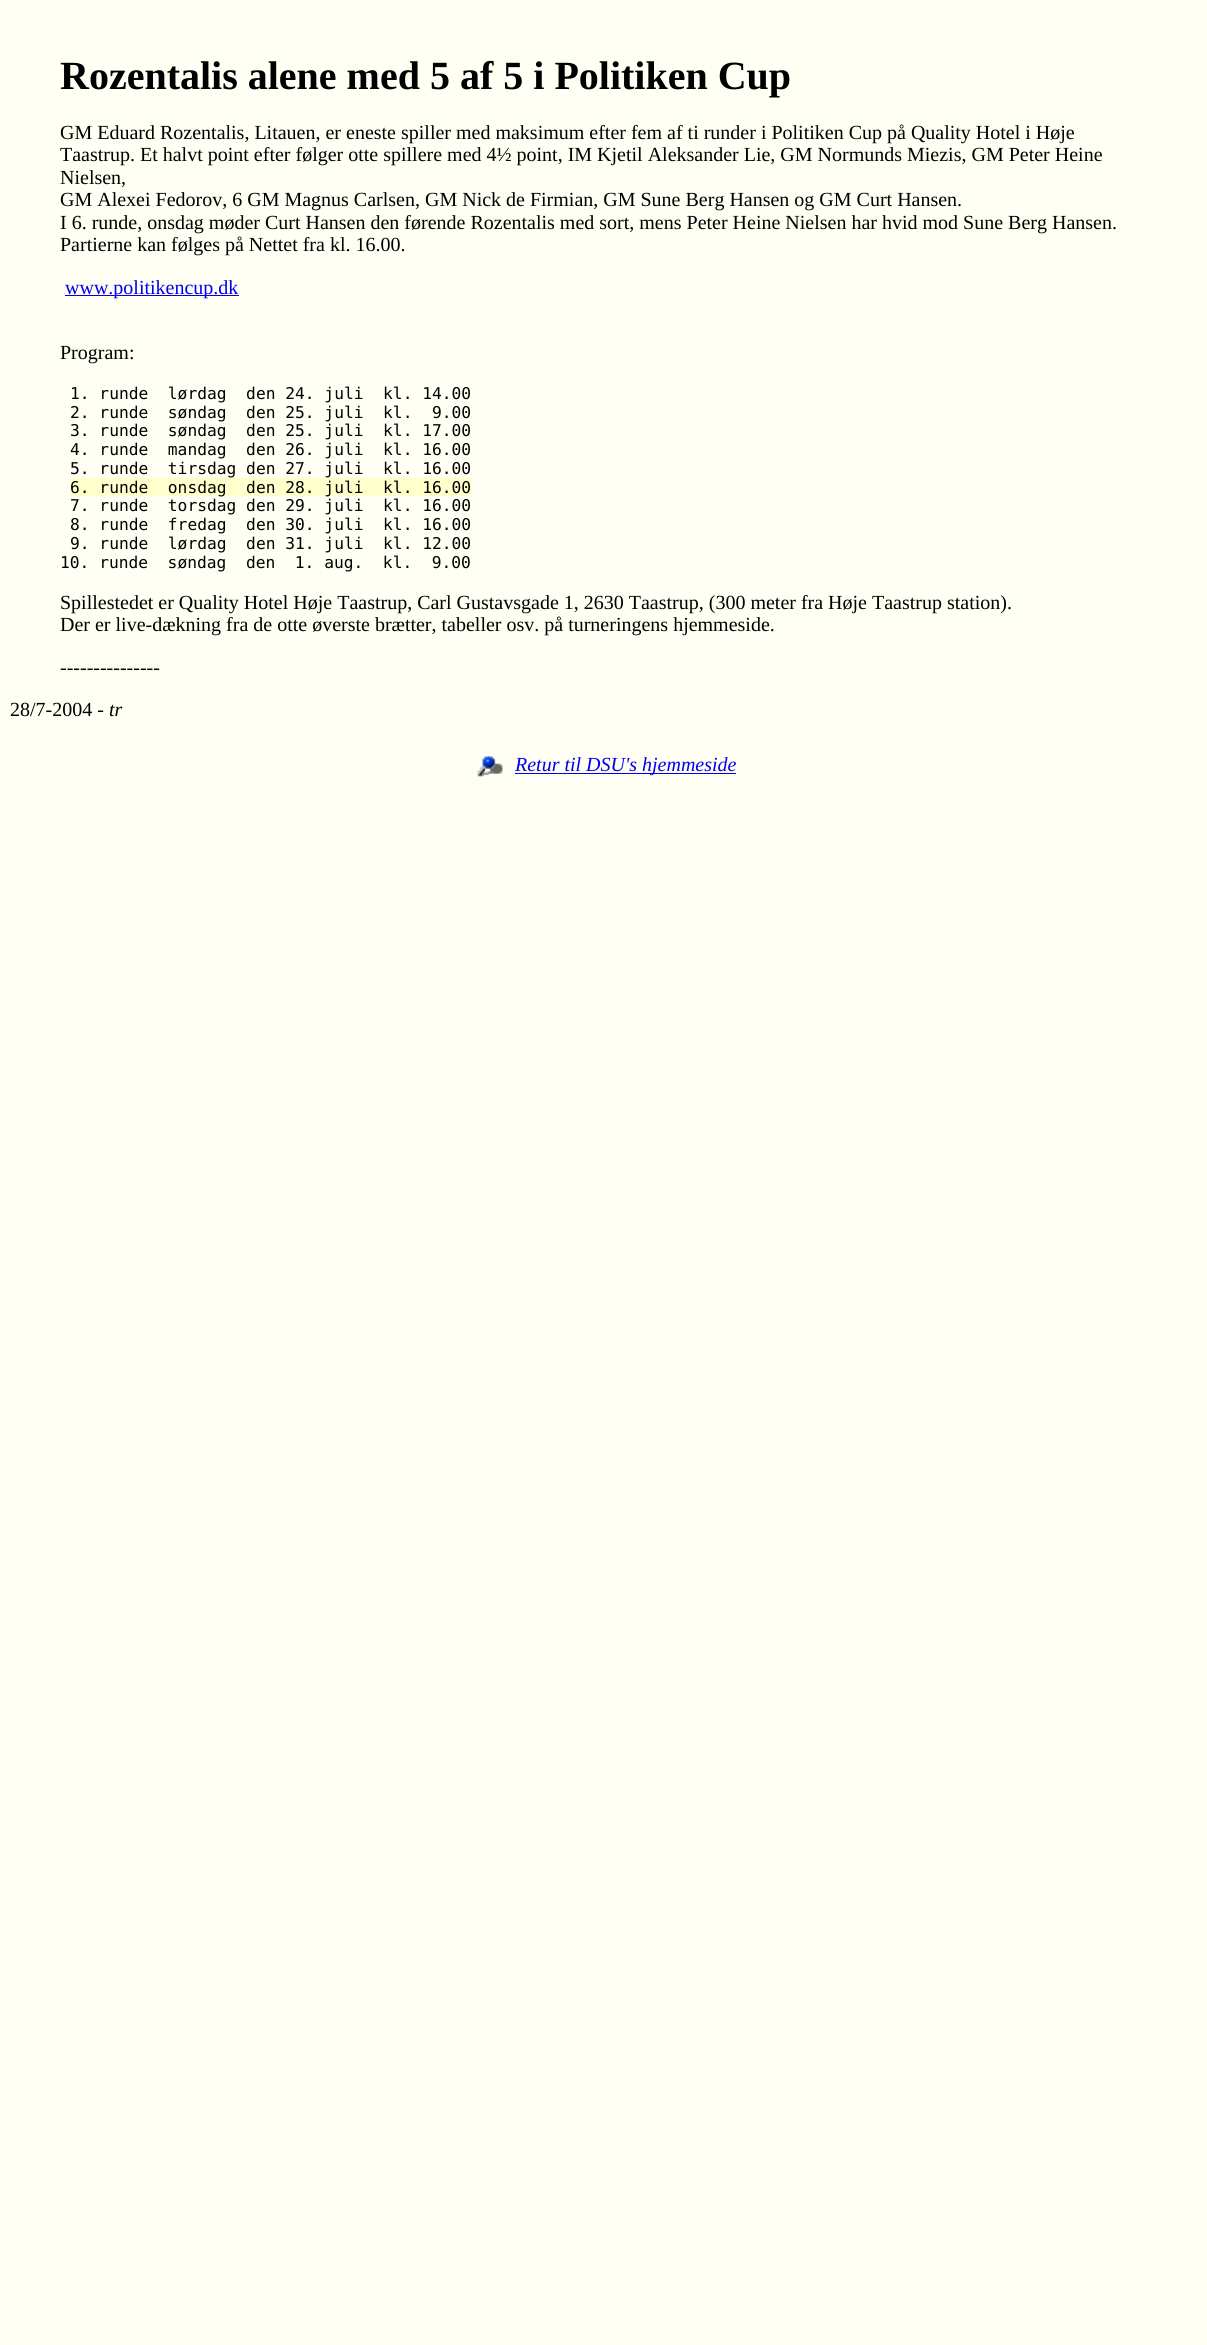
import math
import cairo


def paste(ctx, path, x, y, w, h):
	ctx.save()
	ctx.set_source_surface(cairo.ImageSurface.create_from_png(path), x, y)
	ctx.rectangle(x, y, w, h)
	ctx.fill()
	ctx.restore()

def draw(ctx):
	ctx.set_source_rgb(1, 1, 0.957)
	ctx.paint()
	ctx.select_font_face('Liberation Serif', cairo.FONT_SLANT_NORMAL, cairo.FONT_WEIGHT_BOLD)
	ctx.set_font_size(40)
	ctx.set_source_rgb(0, 0, 0)
	ctx.move_to(60, 89)
	ctx.show_text('Rozentalis alene med 5 af 5 i Politiken Cup')
	ctx.select_font_face('Liberation Serif')
	ctx.set_font_size(20)
	for x, y, s in [
		(60, 139, 'GM Eduard Rozentalis, Litauen, er eneste spiller med maksimum efter fem af ti runder i Politiken Cup på Quality Hotel i Høje'),
		(60, 161, 'Taastrup. Et halvt point efter følger otte spillere med 4½ point, IM Kjetil Aleksander Lie, GM Normunds Miezis, GM Peter Heine'),
		(60, 184, 'Nielsen,'),
		(60, 206, 'GM Alexei Fedorov, 6 GM Magnus Carlsen, GM Nick de Firmian, GM Sune Berg Hansen og GM Curt Hansen.'),
		(60, 229, 'I 6. runde, onsdag møder Curt Hansen den førende Rozentalis med sort, mens Peter Heine Nielsen har hvid mod Sune Berg Hansen.'),
		(60, 251, 'Partierne kan følges på Nettet fra kl. 16.00.'),
	]:
		ctx.move_to(x, y)
		ctx.show_text(s)
	ctx.set_source_rgb(0, 0, 0.933)
	ctx.rectangle(65, 295, 174, 1)
	ctx.fill()
	ctx.move_to(65, 294)
	ctx.show_text('www.politikencup.dk')
	ctx.set_source_rgb(0, 0, 0)
	ctx.move_to(60, 359)
	ctx.show_text('Program:')
	ctx.select_font_face('DejaVu Sans Mono')
	ctx.set_font_size(16.25)
	for x, y, s in [
		(70, 399, '1. runde  lørdag  den 24. juli  kl. 14.00'),
		(70, 418, '2. runde  søndag  den 25. juli  kl.  9.00'),
		(70, 436, '3. runde  søndag  den 25. juli  kl. 17.00'),
		(70, 455, '4. runde  mandag  den 26. juli  kl. 16.00'),
		(70, 474, '5. runde  tirsdag den 27. juli  kl. 16.00'),
	]:
		ctx.move_to(x, y)
		ctx.show_text(s)
	ctx.set_source_rgb(1, 1, 0.8)
	ctx.rectangle(70, 478, 401, 18)
	ctx.fill()
	ctx.set_source_rgb(0, 0, 0)
	for x, y, s in [
		(70, 493, '6. runde  onsdag  den 28. juli  kl. 16.00'),
		(70, 511, '7. runde  torsdag den 29. juli  kl. 16.00'),
		(70, 530, '8. runde  fredag  den 30. juli  kl. 16.00'),
		(70, 549, '9. runde  lørdag  den 31. juli  kl. 12.00'),
		(60, 568, '10. runde  søndag  den  1. aug.  kl.  9.00'),
	]:
		ctx.move_to(x, y)
		ctx.show_text(s)
	ctx.select_font_face('Liberation Serif')
	ctx.set_font_size(20)
	for x, y, s in [
		(60, 609, 'Spillestedet er Quality Hotel Høje Taastrup, Carl Gustavsgade 1, 2630 Taastrup, (300 meter fra Høje Taastrup station).'),
		(60, 631, 'Der er live-dækning fra de otte øverste brætter, tabeller osv. på turneringens hjemmeside.'),
		(60, 674, '---------------'),
		(10, 716, '28/7-2004 -'),
	]:
		ctx.move_to(x, y)
		ctx.show_text(s)
	ctx.select_font_face('Liberation Serif', cairo.FONT_SLANT_ITALIC)
	ctx.move_to(109, 716)
	ctx.show_text('tr')
	paste(ctx, 'media/1.png', 477, 756, 26, 21)
	ctx.set_source_rgb(0, 0, 0.933)
	ctx.rectangle(515, 773, 221, 1)
	ctx.fill()
	ctx.move_to(515, 771)
	ctx.show_text('Retur til DSU\'s hjemmeside')


surface = cairo.ImageSurface(cairo.FORMAT_RGB24, 1207, 2345)
ctx = cairo.Context(surface)
options = cairo.FontOptions()
options.set_hint_metrics(cairo.HINT_METRICS_OFF)
options.set_hint_style(cairo.HINT_STYLE_NONE)
ctx.set_font_options(options)
ctx.set_miter_limit(4)
draw(ctx)
surface.write_to_png('image.png')
